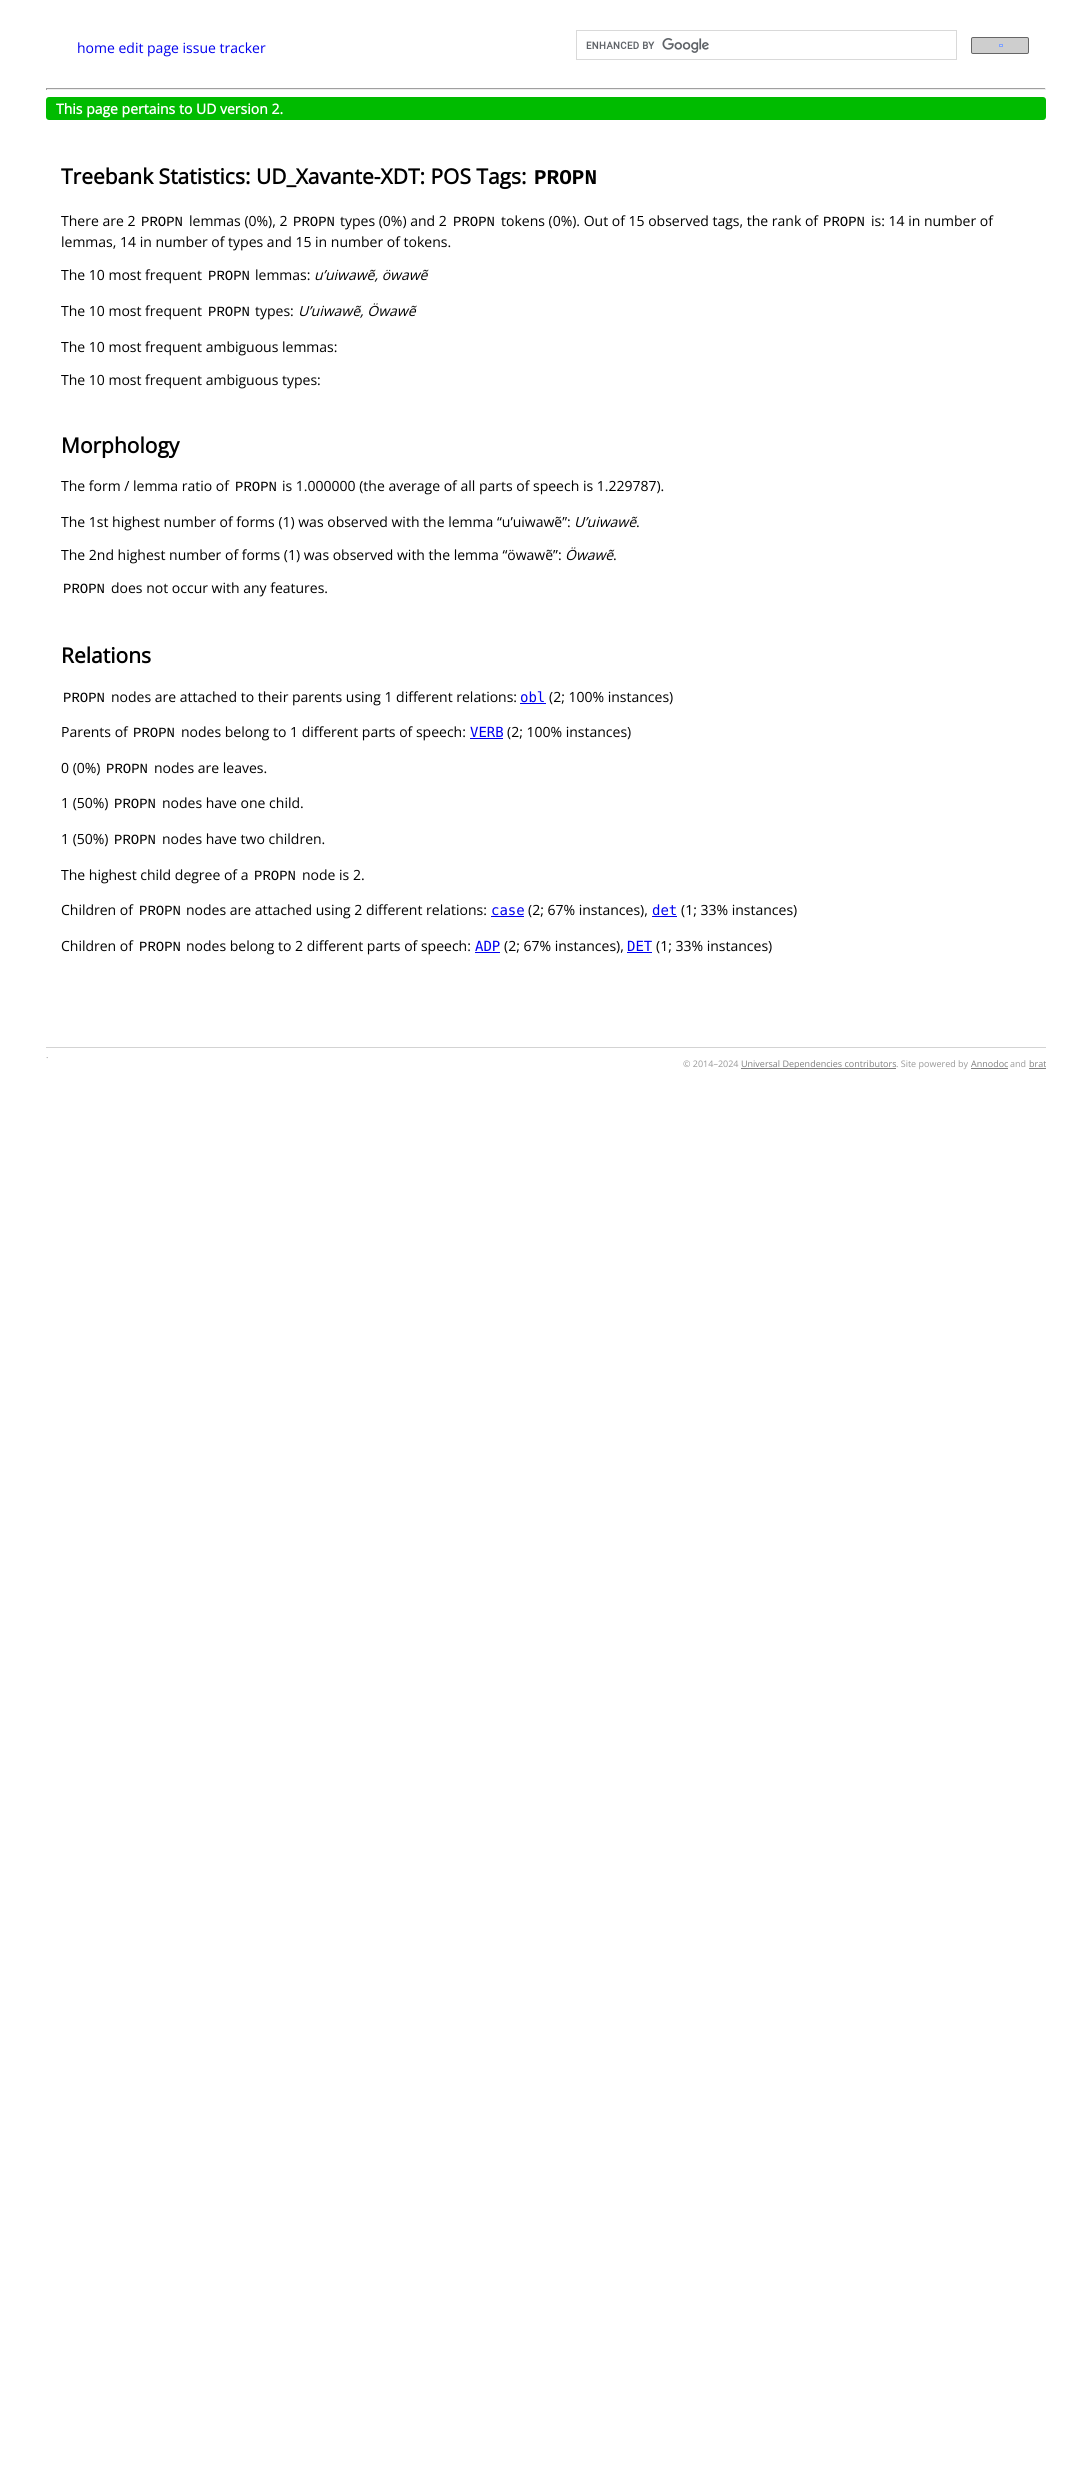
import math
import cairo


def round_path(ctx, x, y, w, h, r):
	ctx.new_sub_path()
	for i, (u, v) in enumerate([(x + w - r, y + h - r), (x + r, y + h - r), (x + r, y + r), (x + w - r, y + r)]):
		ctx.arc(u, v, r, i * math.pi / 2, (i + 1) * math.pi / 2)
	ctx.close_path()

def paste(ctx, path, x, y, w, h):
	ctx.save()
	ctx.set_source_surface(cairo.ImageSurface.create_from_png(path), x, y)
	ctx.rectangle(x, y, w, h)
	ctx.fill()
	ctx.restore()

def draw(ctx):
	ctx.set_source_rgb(1, 1, 1)
	ctx.paint()
	ctx.select_font_face('Open Sans')
	ctx.set_font_size(14)
	ctx.set_source_rgb(0, 0, 0.933)
	ctx.move_to(77, 53)
	ctx.show_text('home edit page issue tracker')
	ctx.rectangle(576.5, 30.5, 380, 29)
	ctx.set_source_rgb(0.851, 0.851, 0.851)
	ctx.set_line_width(1)
	ctx.stroke()
	paste(ctx, 'media/1.png', 586, 38, 123, 15)
	ctx.set_source_rgb(0.808, 0.808, 0.808)
	round_path(ctx, 971.5, 37.5, 57, 16, 1.5)
	ctx.fill_preserve()
	ctx.set_source_rgb(0.4, 0.4, 0.4)
	ctx.stroke()
	ctx.rectangle(999.5, 44.5, 3, 2)
	ctx.set_source_rgb(0.498, 0.635, 1)
	ctx.stroke()
	ctx.set_source_rgb(0.835, 0.835, 0.835)
	ctx.rectangle(1000, 45, 2, 1)
	ctx.fill()
	ctx.set_source_rgb(0.624, 0.624, 0.624)
	ctx.rectangle(46, 88, 1000, 1)
	ctx.fill()
	ctx.set_source_rgb(0.933, 0.933, 0.933)
	ctx.rectangle(1045, 88, 1, 2)
	ctx.rectangle(46, 89, 1000, 1)
	ctx.fill()
	ctx.set_source_rgb(0.624, 0.624, 0.624)
	ctx.rectangle(46, 88, 1, 2)
	ctx.fill()
	ctx.set_source_rgb(0, 0.733, 0)
	round_path(ctx, 46, 97, 1000, 23, 3)
	ctx.fill()
	ctx.select_font_face('Open Sans', cairo.FONT_SLANT_NORMAL, cairo.FONT_WEIGHT_BOLD)
	ctx.set_source_rgb(1, 1, 1)
	ctx.move_to(56, 114)
	ctx.show_text('This page pertains to UD version 2.')
	ctx.set_font_size(21)
	ctx.set_source_rgb(0, 0, 0)
	ctx.move_to(61, 184)
	ctx.show_text('Treebank Statistics: UD_Xavante-XDT: POS Tags:')
	ctx.select_font_face('Liberation Mono', cairo.FONT_SLANT_NORMAL, cairo.FONT_WEIGHT_BOLD)
	ctx.move_to(534, 184)
	ctx.show_text('PROPN')
	ctx.select_font_face('Open Sans')
	ctx.set_font_size(14)
	ctx.move_to(61, 226)
	ctx.show_text('There are 2')
	ctx.select_font_face('Liberation Mono')
	ctx.move_to(141, 226)
	ctx.show_text('PROPN')
	ctx.select_font_face('Open Sans')
	ctx.move_to(189, 226)
	ctx.show_text('lemmas (0%), 2')
	ctx.select_font_face('Liberation Mono')
	ctx.move_to(293, 226)
	ctx.show_text('PROPN')
	ctx.select_font_face('Open Sans')
	ctx.move_to(340, 226)
	ctx.show_text('types (0%) and 2')
	ctx.select_font_face('Liberation Mono')
	ctx.move_to(453, 226)
	ctx.show_text('PROPN')
	ctx.select_font_face('Open Sans')
	ctx.move_to(501, 226)
	ctx.show_text('tokens (0%). Out of 15 observed tags, the rank of')
	ctx.select_font_face('Liberation Mono')
	ctx.move_to(823, 226)
	ctx.show_text('PROPN')
	ctx.select_font_face('Open Sans')
	for x, y, s in [
		(871, 226, 'is: 14 in number of'),
		(61, 247, 'lemmas, 14 in number of types and 15 in number of tokens.'),
		(61, 280, 'The 10 most frequent'),
	]:
		ctx.move_to(x, y)
		ctx.show_text(s)
	ctx.select_font_face('Liberation Mono')
	ctx.move_to(208, 280)
	ctx.show_text('PROPN')
	ctx.select_font_face('Open Sans')
	ctx.move_to(255, 280)
	ctx.show_text('lemmas:')
	ctx.select_font_face('Open Sans', cairo.FONT_SLANT_ITALIC)
	ctx.move_to(314, 280)
	ctx.show_text('u’uiwawẽ, öwawẽ')
	ctx.select_font_face('Open Sans')
	ctx.move_to(61, 316)
	ctx.show_text('The 10 most frequent')
	ctx.select_font_face('Liberation Mono')
	ctx.move_to(208, 316)
	ctx.show_text('PROPN')
	ctx.select_font_face('Open Sans')
	ctx.move_to(255, 316)
	ctx.show_text('types:')
	ctx.select_font_face('Open Sans', cairo.FONT_SLANT_ITALIC)
	ctx.move_to(298, 316)
	ctx.show_text('U’uiwawẽ, Öwawẽ')
	ctx.select_font_face('Open Sans')
	ctx.move_to(61, 352)
	ctx.show_text('The 10 most frequent ambiguous lemmas:')
	ctx.move_to(61, 385)
	ctx.show_text('The 10 most frequent ambiguous types:')
	ctx.select_font_face('Open Sans', cairo.FONT_SLANT_NORMAL, cairo.FONT_WEIGHT_BOLD)
	ctx.set_font_size(21)
	ctx.move_to(61, 453)
	ctx.show_text('Morphology')
	ctx.select_font_face('Open Sans')
	ctx.set_font_size(14)
	ctx.move_to(61, 491)
	ctx.show_text('The form / lemma ratio of')
	ctx.select_font_face('Liberation Mono')
	ctx.move_to(235, 491)
	ctx.show_text('PROPN')
	ctx.select_font_face('Open Sans')
	ctx.move_to(282, 491)
	ctx.show_text('is 1.000000 (the average of all parts of speech is 1.229787).')
	ctx.move_to(61, 527)
	ctx.show_text('The 1st highest number of forms (1) was observed with the lemma “u’uiwawẽ”:')
	ctx.select_font_face('Open Sans', cairo.FONT_SLANT_ITALIC)
	ctx.move_to(574, 527)
	ctx.show_text('U’uiwawẽ')
	ctx.select_font_face('Open Sans')
	ctx.move_to(636, 527)
	ctx.show_text('.')
	ctx.move_to(61, 560)
	ctx.show_text('The 2nd highest number of forms (1) was observed with the lemma “öwawẽ”:')
	ctx.select_font_face('Open Sans', cairo.FONT_SLANT_ITALIC)
	ctx.move_to(565, 560)
	ctx.show_text('Öwawẽ')
	ctx.select_font_face('Open Sans')
	ctx.move_to(613, 560)
	ctx.show_text('.')
	ctx.select_font_face('Liberation Mono')
	ctx.move_to(63, 593)
	ctx.show_text('PROPN')
	ctx.select_font_face('Open Sans')
	ctx.move_to(111, 593)
	ctx.show_text('does not occur with any features.')
	ctx.select_font_face('Open Sans', cairo.FONT_SLANT_NORMAL, cairo.FONT_WEIGHT_BOLD)
	ctx.set_font_size(21)
	ctx.move_to(61, 663)
	ctx.show_text('Relations')
	ctx.select_font_face('Liberation Mono')
	ctx.set_font_size(14)
	ctx.move_to(63, 702)
	ctx.show_text('PROPN')
	ctx.select_font_face('Open Sans')
	ctx.move_to(111, 702)
	ctx.show_text('nodes are attached to their parents using 1 different relations:')
	ctx.select_font_face('DejaVu Sans Mono')
	ctx.set_source_rgb(0, 0, 0.933)
	ctx.move_to(520, 702)
	ctx.show_text('obl')
	ctx.rectangle(520, 703, 26, 1)
	ctx.fill()
	ctx.select_font_face('Open Sans')
	ctx.set_source_rgb(0, 0, 0)
	ctx.move_to(549, 702)
	ctx.show_text('(2; 100% instances)')
	ctx.move_to(61, 737)
	ctx.show_text('Parents of')
	ctx.select_font_face('Liberation Mono')
	ctx.move_to(133, 737)
	ctx.show_text('PROPN')
	ctx.select_font_face('Open Sans')
	ctx.move_to(181, 737)
	ctx.show_text('nodes belong to 1 different parts of speech:')
	ctx.select_font_face('DejaVu Sans Mono')
	ctx.set_source_rgb(0, 0, 0.933)
	ctx.move_to(470, 737)
	ctx.show_text('VERB')
	ctx.rectangle(470, 738, 33, 1)
	ctx.fill()
	ctx.select_font_face('Open Sans')
	ctx.set_source_rgb(0, 0, 0)
	ctx.move_to(507, 737)
	ctx.show_text('(2; 100% instances)')
	ctx.move_to(61, 773)
	ctx.show_text('0 (0%)')
	ctx.select_font_face('Liberation Mono')
	ctx.move_to(106, 773)
	ctx.show_text('PROPN')
	ctx.select_font_face('Open Sans')
	ctx.move_to(154, 773)
	ctx.show_text('nodes are leaves.')
	ctx.move_to(61, 808)
	ctx.show_text('1 (50%)')
	ctx.select_font_face('Liberation Mono')
	ctx.move_to(114, 808)
	ctx.show_text('PROPN')
	ctx.select_font_face('Open Sans')
	ctx.move_to(162, 808)
	ctx.show_text('nodes have one child.')
	ctx.move_to(61, 844)
	ctx.show_text('1 (50%)')
	ctx.select_font_face('Liberation Mono')
	ctx.move_to(114, 844)
	ctx.show_text('PROPN')
	ctx.select_font_face('Open Sans')
	ctx.move_to(162, 844)
	ctx.show_text('nodes have two children.')
	ctx.move_to(61, 880)
	ctx.show_text('The highest child degree of a')
	ctx.select_font_face('Liberation Mono')
	ctx.move_to(254, 880)
	ctx.show_text('PROPN')
	ctx.select_font_face('Open Sans')
	ctx.move_to(302, 880)
	ctx.show_text('node is 2.')
	ctx.move_to(61, 915)
	ctx.show_text('Children of')
	ctx.select_font_face('Liberation Mono')
	ctx.move_to(139, 915)
	ctx.show_text('PROPN')
	ctx.select_font_face('Open Sans')
	ctx.move_to(186, 915)
	ctx.show_text('nodes are attached using 2 different relations:')
	ctx.select_font_face('DejaVu Sans Mono')
	ctx.set_source_rgb(0, 0, 0.933)
	ctx.move_to(491, 915)
	ctx.show_text('case')
	ctx.rectangle(491, 916, 33, 1)
	ctx.fill()
	ctx.select_font_face('Open Sans')
	ctx.set_source_rgb(0, 0, 0)
	ctx.move_to(528, 915)
	ctx.show_text('(2; 67% instances),')
	ctx.select_font_face('DejaVu Sans Mono')
	ctx.set_source_rgb(0, 0, 0.933)
	ctx.move_to(652, 915)
	ctx.show_text('det')
	ctx.rectangle(652, 916, 25, 1)
	ctx.fill()
	ctx.select_font_face('Open Sans')
	ctx.set_source_rgb(0, 0, 0)
	ctx.move_to(681, 915)
	ctx.show_text('(1; 33% instances)')
	ctx.move_to(61, 951)
	ctx.show_text('Children of')
	ctx.select_font_face('Liberation Mono')
	ctx.move_to(139, 951)
	ctx.show_text('PROPN')
	ctx.select_font_face('Open Sans')
	ctx.move_to(186, 951)
	ctx.show_text('nodes belong to 2 different parts of speech:')
	ctx.select_font_face('DejaVu Sans Mono')
	ctx.set_source_rgb(0, 0, 0.933)
	ctx.move_to(475, 951)
	ctx.show_text('ADP')
	ctx.rectangle(475, 952, 25, 1)
	ctx.fill()
	ctx.select_font_face('Open Sans')
	ctx.set_source_rgb(0, 0, 0)
	ctx.move_to(504, 951)
	ctx.show_text('(2; 67% instances),')
	ctx.select_font_face('DejaVu Sans Mono')
	ctx.set_source_rgb(0, 0, 0.933)
	ctx.move_to(627, 951)
	ctx.show_text('DET')
	ctx.rectangle(627, 952, 25, 1)
	ctx.fill()
	ctx.select_font_face('Open Sans')
	ctx.set_source_rgb(0, 0, 0)
	ctx.move_to(656, 951)
	ctx.show_text('(1; 33% instances)')
	ctx.set_source_rgb(0.827, 0.827, 0.827)
	ctx.rectangle(46, 1047, 1000, 1)
	ctx.fill()
	ctx.set_font_size(9)
	ctx.set_source_rgb(0.6, 0.6, 0.6)
	ctx.move_to(46, 1058)
	ctx.show_text('.')
	ctx.move_to(683, 1067)
	ctx.show_text('© 2014–2024')
	ctx.set_source_rgb(0.502, 0.502, 0.502)
	ctx.rectangle(741, 1068, 155, 1)
	ctx.fill()
	ctx.move_to(741, 1067)
	ctx.show_text('Universal Dependencies contributors')
	ctx.set_source_rgb(0.6, 0.6, 0.6)
	ctx.move_to(896, 1067)
	ctx.show_text('. Site powered by')
	ctx.set_source_rgb(0.502, 0.502, 0.502)
	ctx.move_to(971, 1067)
	ctx.show_text('Annodoc')
	ctx.rectangle(971, 1068, 37, 1)
	ctx.fill()
	ctx.set_source_rgb(0.6, 0.6, 0.6)
	ctx.move_to(1010, 1067)
	ctx.show_text('and')
	ctx.set_source_rgb(0.502, 0.502, 0.502)
	ctx.move_to(1029, 1067)
	ctx.show_text('brat')
	ctx.rectangle(1029, 1068, 17, 1)
	ctx.fill()


surface = cairo.ImageSurface(cairo.FORMAT_RGB24, 1092, 2471)
ctx = cairo.Context(surface)
options = cairo.FontOptions()
options.set_hint_metrics(cairo.HINT_METRICS_OFF)
options.set_hint_style(cairo.HINT_STYLE_NONE)
ctx.set_font_options(options)
ctx.set_miter_limit(4)
draw(ctx)
surface.write_to_png('image.png')
